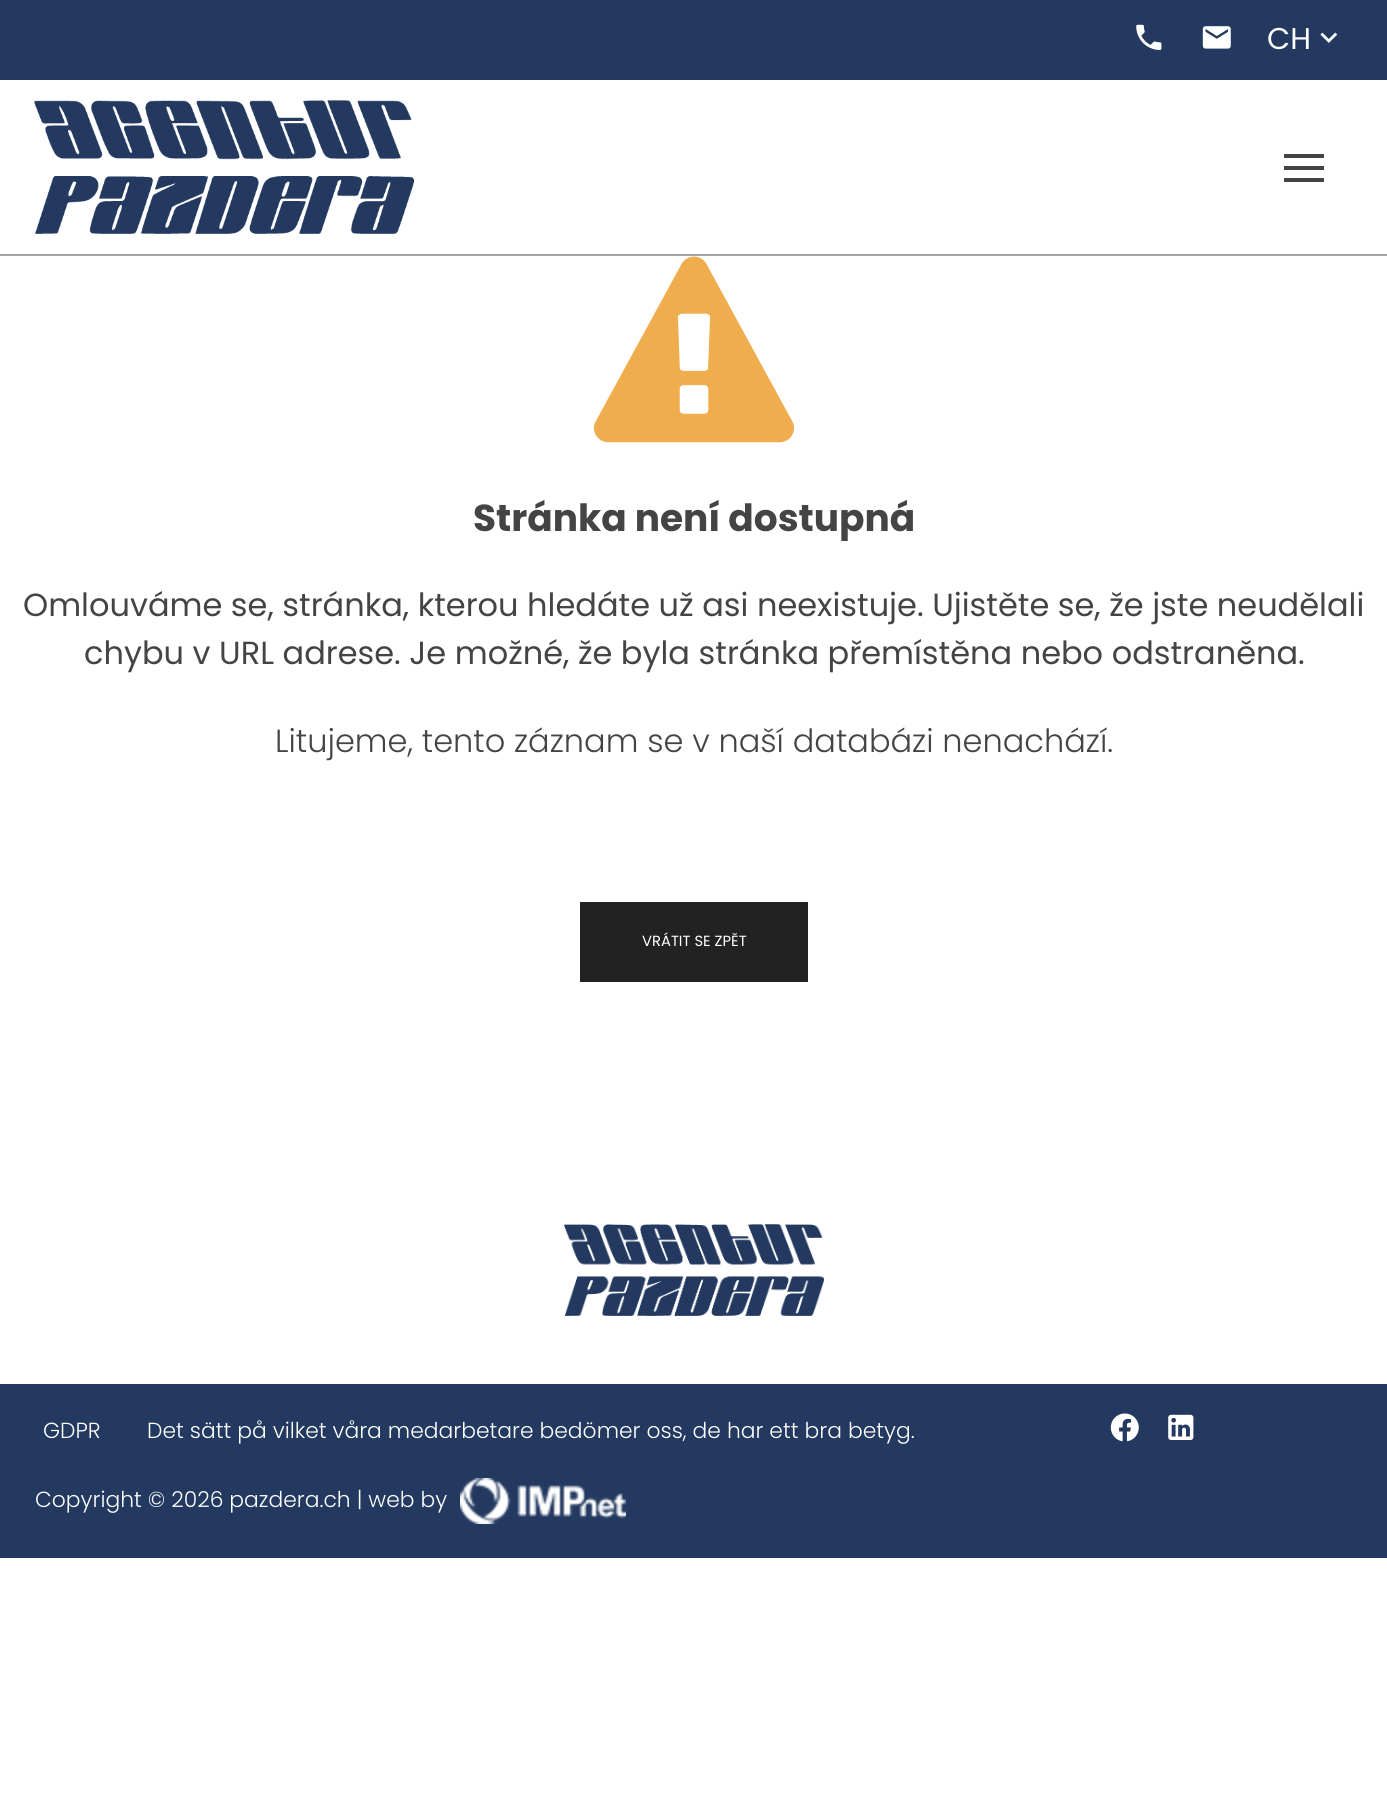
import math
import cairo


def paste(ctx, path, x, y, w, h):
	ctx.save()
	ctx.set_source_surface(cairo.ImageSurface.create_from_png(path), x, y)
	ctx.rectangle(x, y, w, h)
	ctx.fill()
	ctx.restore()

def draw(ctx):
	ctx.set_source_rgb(1, 1, 1)
	ctx.paint()
	ctx.set_source_rgb(0.137, 0.224, 0.373)
	ctx.rectangle(0, 0, 1387, 80)
	ctx.fill()
	paste(ctx, 'media/1.png', 1136, 24, 26, 26)
	paste(ctx, 'media/2.png', 1202, 26, 29, 23)
	ctx.select_font_face('Poppins')
	ctx.set_font_size(30)
	ctx.set_source_rgb(1, 1, 1)
	ctx.move_to(1267, 49)
	ctx.show_text('CH')
	paste(ctx, 'media/3.png', 1320, 32, 18, 11)
	ctx.set_source_rgb(0.655, 0.655, 0.655)
	ctx.rectangle(0, 254, 1387, 2)
	ctx.fill()
	paste(ctx, 'media/4.png', 34, 100, 380, 134)
	ctx.set_source_rgb(0.267, 0.267, 0.267)
	ctx.rectangle(1284, 166, 40, 4)
	ctx.rectangle(1284, 154, 40, 4)
	ctx.rectangle(1284, 178, 40, 4)
	ctx.fill()
	paste(ctx, 'media/5.png', 593, 256, 202, 187)
	ctx.select_font_face('Poppins', cairo.FONT_SLANT_NORMAL, cairo.FONT_WEIGHT_BOLD)
	ctx.set_font_size(37.5)
	ctx.move_to(473, 531)
	ctx.show_text('Stránka není dostupná')
	ctx.select_font_face('Poppins')
	ctx.set_font_size(32)
	ctx.move_to(23, 616)
	ctx.show_text('Omlouváme se, stránka, kterou hledáte už asi neexistuje. Ujistěte se, že jste neudělali')
	ctx.move_to(84, 664)
	ctx.show_text('chybu v URL adrese. Je možné, že byla stránka přemístěna nebo odstraněna.')
	ctx.select_font_face('Poppins Light')
	ctx.move_to(275, 752)
	ctx.show_text('Litujeme, tento záznam se v naší databázi nenachází.')
	ctx.set_source_rgb(0.133, 0.133, 0.133)
	ctx.rectangle(580, 902, 228, 80)
	ctx.fill()
	ctx.select_font_face('Poppins')
	ctx.set_font_size(14.75)
	ctx.set_source_rgb(1, 1, 1)
	ctx.move_to(642, 946)
	ctx.show_text('VRÁTIT SE ZPĚT')
	paste(ctx, 'media/6.png', 564, 1224, 260, 92)
	ctx.set_source_rgb(0.137, 0.224, 0.373)
	ctx.rectangle(0, 1384, 1387, 174)
	ctx.fill()
	ctx.select_font_face('Poppins Light')
	ctx.set_font_size(21.85)
	ctx.set_source_rgb(1, 1, 1)
	ctx.move_to(43, 1438)
	ctx.show_text('GDPR')
	ctx.move_to(147, 1438)
	ctx.show_text('Det sätt på vilket våra medarbetare bedömer oss, de har ett bra betyg.')
	paste(ctx, 'media/7.png', 1110, 1413, 29, 29)
	paste(ctx, 'media/8.png', 1168, 1414, 26, 26)
	ctx.move_to(35, 1507)
	ctx.show_text('Copyright © 2026 pazdera.ch | web by')
	paste(ctx, 'media/9.png', 460, 1478, 166, 46)


surface = cairo.ImageSurface(cairo.FORMAT_RGB24, 1387, 1809)
ctx = cairo.Context(surface)
options = cairo.FontOptions()
options.set_hint_metrics(cairo.HINT_METRICS_OFF)
options.set_hint_style(cairo.HINT_STYLE_NONE)
ctx.set_font_options(options)
ctx.set_miter_limit(4)
draw(ctx)
surface.write_to_png('image.png')
